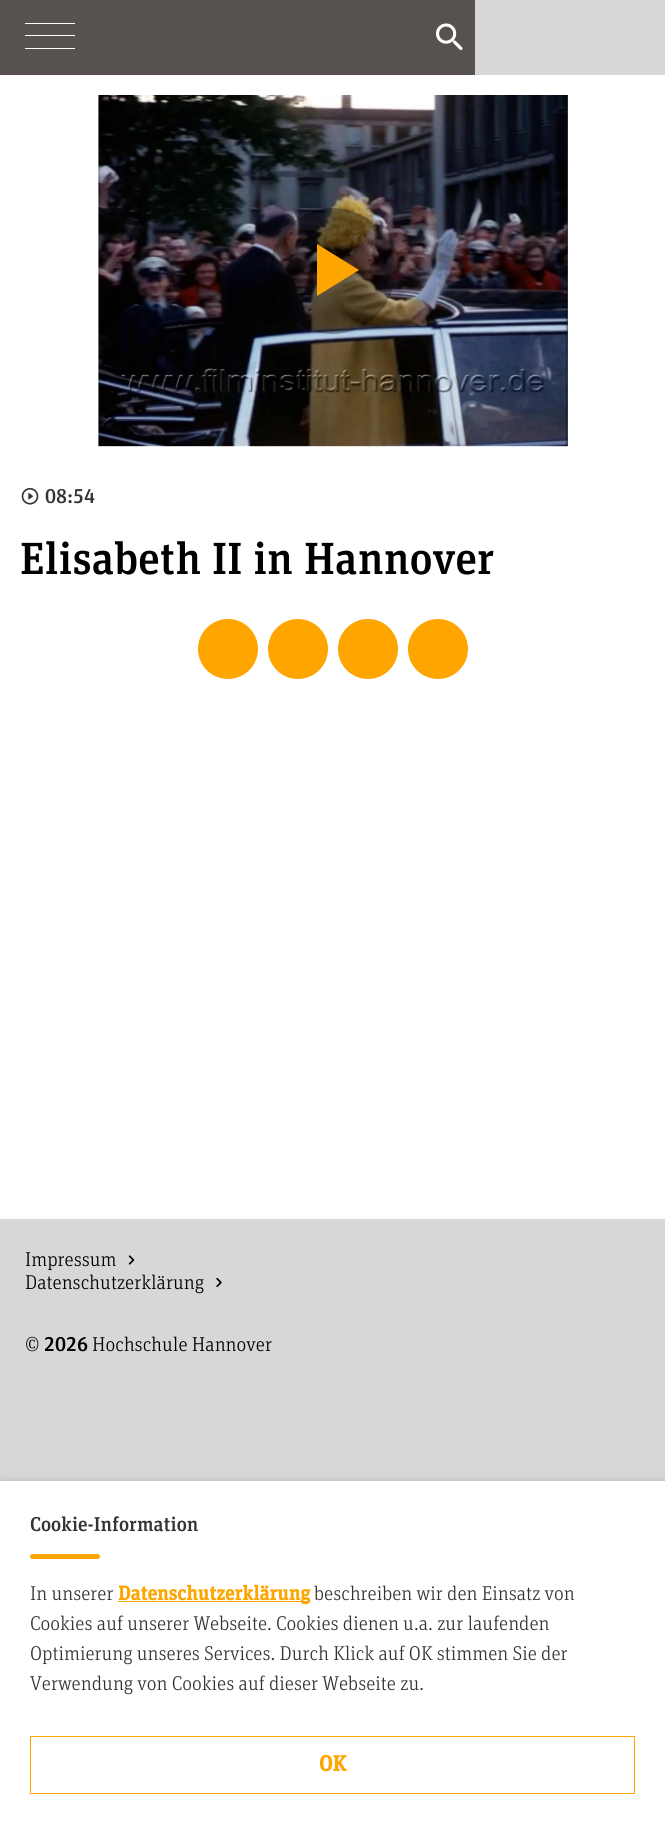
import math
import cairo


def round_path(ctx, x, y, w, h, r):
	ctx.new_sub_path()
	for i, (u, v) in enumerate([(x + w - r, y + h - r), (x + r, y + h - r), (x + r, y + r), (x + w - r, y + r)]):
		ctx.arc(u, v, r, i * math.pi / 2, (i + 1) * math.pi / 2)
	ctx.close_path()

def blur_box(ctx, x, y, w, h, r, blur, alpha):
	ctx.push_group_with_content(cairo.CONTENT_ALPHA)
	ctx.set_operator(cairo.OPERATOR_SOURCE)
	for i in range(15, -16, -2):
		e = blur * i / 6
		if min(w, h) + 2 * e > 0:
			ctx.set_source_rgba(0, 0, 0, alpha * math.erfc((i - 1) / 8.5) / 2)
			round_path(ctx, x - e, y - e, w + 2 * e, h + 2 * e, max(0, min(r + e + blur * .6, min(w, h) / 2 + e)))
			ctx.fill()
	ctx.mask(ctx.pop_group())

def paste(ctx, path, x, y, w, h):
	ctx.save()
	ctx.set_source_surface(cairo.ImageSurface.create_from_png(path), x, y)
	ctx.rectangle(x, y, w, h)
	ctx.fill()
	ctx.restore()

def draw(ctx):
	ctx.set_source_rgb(1, 1, 1)
	ctx.paint()
	ctx.set_source_rgb(0.341, 0.322, 0.314)
	ctx.rectangle(0, 0, 475, 75)
	ctx.fill()
	ctx.set_source_rgb(1, 1, 1)
	ctx.rectangle(25, 48, 50, 1)
	ctx.rectangle(25, 23, 50, 1)
	ctx.rectangle(25, 35, 50, 1)
	ctx.fill()
	paste(ctx, 'media/1.png', 436, 23, 27, 27)
	ctx.set_source_rgb(0.847, 0.843, 0.843)
	ctx.rectangle(475, 0, 190, 75)
	ctx.fill()
	paste(ctx, 'media/2.png', 98, 95, 470, 352)
	paste(ctx, 'media/3.png', 98, 95, 470, 352)
	paste(ctx, 'media/4.png', 98, 95, 470, 352)
	ctx.set_source_rgba(0, 0, 0, 0.3)
	round_path(ctx, 270, 208, 125, 126, 62.5)
	ctx.fill()
	ctx.set_source_rgb(1, 0.647, 0)
	ctx.new_path()
	ctx.move_to(317, 244)
	ctx.line_to(317, 296)
	ctx.line_to(359, 270)
	ctx.close_path()
	ctx.fill()
	paste(ctx, 'media/5.png', 21, 488, 18, 17)
	ctx.select_font_face('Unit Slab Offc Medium')
	ctx.set_font_size(20)
	ctx.set_source_rgb(0.2, 0.2, 0.2)
	ctx.move_to(45, 503)
	ctx.show_text('08:54')
	ctx.set_font_size(45)
	ctx.set_source_rgb(0, 0, 0)
	ctx.move_to(20, 574)
	ctx.show_text('Elisabeth II in Hannover')
	ctx.set_source_rgb(1, 0.647, 0)
	ctx.new_path()
	ctx.arc(228, 649, 30, 0, 2 * math.pi)
	ctx.fill()
	ctx.arc(298, 649, 30, 0, 2 * math.pi)
	ctx.fill()
	ctx.arc(368, 649, 30, 0, 2 * math.pi)
	ctx.fill()
	ctx.arc(438, 649, 30, 0, 2 * math.pi)
	ctx.fill()
	ctx.set_source_rgb(0.847, 0.843, 0.843)
	ctx.rectangle(0, 1219, 665, 262)
	ctx.fill()
	ctx.select_font_face('Unit Slab Offc Light')
	ctx.set_font_size(20)
	ctx.set_source_rgb(0, 0, 0)
	ctx.move_to(25, 1266)
	ctx.show_text('Impressum')
	paste(ctx, 'media/6.png', 128, 1255, 7, 10)
	ctx.move_to(25, 1289)
	ctx.show_text('Datenschutzerklärung')
	paste(ctx, 'media/7.png', 216, 1277, 6, 11)
	ctx.move_to(25, 1351)
	ctx.show_text('©')
	ctx.select_font_face('Unit Slab Offc Medium')
	ctx.move_to(44, 1351)
	ctx.show_text('2026')
	ctx.select_font_face('Unit Slab Offc Light')
	ctx.move_to(92, 1351)
	ctx.show_text('Hochschule Hannover')
	ctx.set_source_rgb(0, 0, 0)
	blur_box(ctx, 0, 1481, 665, 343, 0, 4, 0.14)
	ctx.set_source_rgb(1, 1, 1)
	ctx.rectangle(0, 1481, 665, 342)
	ctx.fill()
	ctx.select_font_face('Unit Slab Offc Medium')
	ctx.set_source_rgb(0.2, 0.2, 0.2)
	ctx.move_to(30, 1531)
	ctx.show_text('Cookie-Information')
	ctx.set_source_rgb(1, 0.647, 0)
	round_path(ctx, 30, 1554, 70, 5, 2.5)
	ctx.fill()
	ctx.select_font_face('Unit Slab Offc Light')
	ctx.set_source_rgb(0.2, 0.2, 0.2)
	ctx.move_to(30, 1600)
	ctx.show_text('In unserer')
	ctx.set_source_rgb(1, 0.647, 0)
	ctx.rectangle(118, 1601, 192, 1)
	ctx.fill()
	ctx.select_font_face('Unit Slab Offc', cairo.FONT_SLANT_NORMAL, cairo.FONT_WEIGHT_BOLD)
	ctx.move_to(118, 1600)
	ctx.show_text('Datenschutzerklärung')
	ctx.select_font_face('Unit Slab Offc Light')
	ctx.set_source_rgb(0.2, 0.2, 0.2)
	for x, y, s in [
		(314, 1600, 'beschreiben wir den Einsatz von'),
		(30, 1630, 'Cookies auf unserer Webseite. Cookies dienen u.a. zur laufenden'),
		(30, 1660, 'Optimierung unseres Services. Durch Klick auf OK stimmen Sie der'),
		(30, 1690, 'Verwendung von Cookies auf dieser Webseite zu.'),
	]:
		ctx.move_to(x, y)
		ctx.show_text(s)
	ctx.rectangle(30.5, 1736.5, 604, 57)
	ctx.set_source_rgb(1, 0.647, 0)
	ctx.set_line_width(1)
	ctx.stroke()
	ctx.select_font_face('Unit Slab Offc', cairo.FONT_SLANT_NORMAL, cairo.FONT_WEIGHT_BOLD)
	ctx.set_font_size(22)
	ctx.move_to(319, 1771)
	ctx.show_text('OK')


surface = cairo.ImageSurface(cairo.FORMAT_RGB24, 665, 1823)
ctx = cairo.Context(surface)
options = cairo.FontOptions()
options.set_hint_metrics(cairo.HINT_METRICS_OFF)
options.set_hint_style(cairo.HINT_STYLE_NONE)
ctx.set_font_options(options)
ctx.set_miter_limit(4)
draw(ctx)
surface.write_to_png('image.png')
